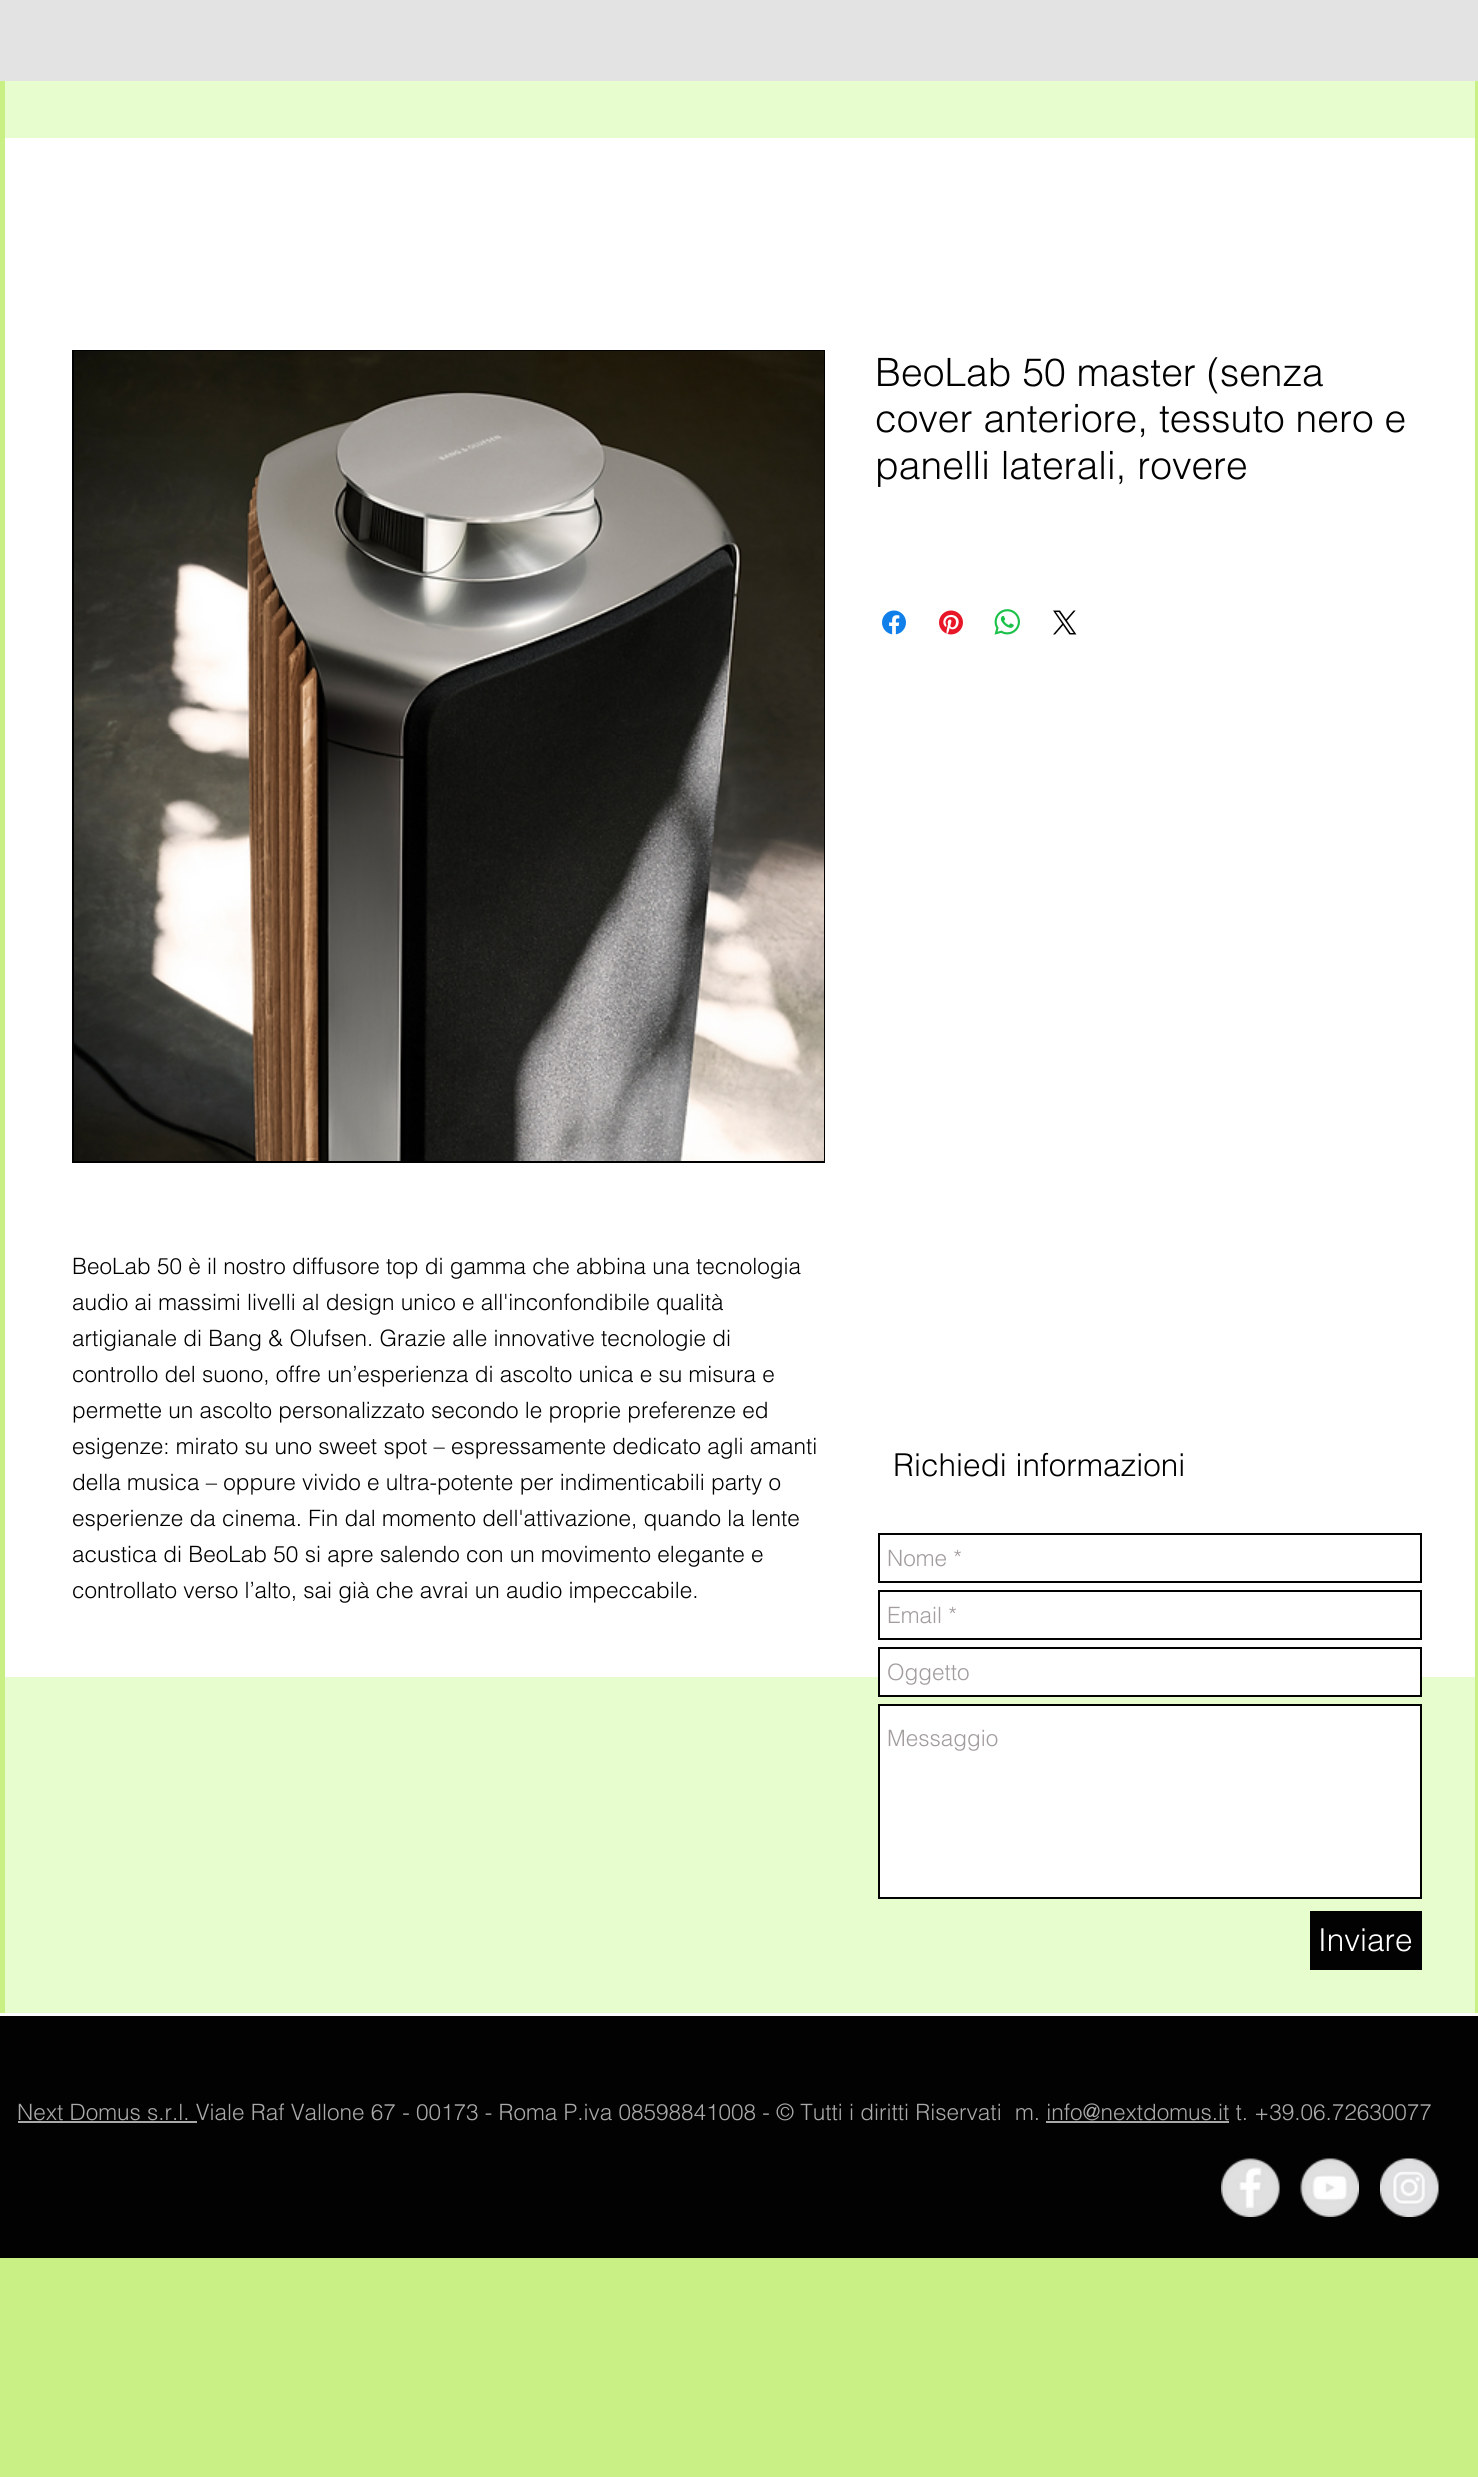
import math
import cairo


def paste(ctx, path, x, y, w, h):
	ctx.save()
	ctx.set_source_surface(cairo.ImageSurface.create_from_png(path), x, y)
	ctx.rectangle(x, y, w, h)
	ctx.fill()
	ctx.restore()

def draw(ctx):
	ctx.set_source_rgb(0.788, 0.941, 0.522)
	ctx.paint()
	ctx.set_source_rgb(0.89, 0.89, 0.89)
	ctx.rectangle(0, 0, 1478, 81)
	ctx.fill()
	ctx.set_source_rgb(0.91, 0.992, 0.804)
	ctx.rectangle(5, 81, 1470, 1932)
	ctx.fill()
	ctx.set_source_rgb(1, 1, 1)
	ctx.rectangle(5, 138, 1470, 1539)
	ctx.fill()
	ctx.select_font_face('helvetica Light')
	ctx.set_font_size(39)
	ctx.set_source_rgb(0, 0, 0)
	for x, y, s in [
		(875, 386, 'BeoLab 50 master (senza'),
		(875, 432, 'cover anteriore, tessuto nero e'),
		(875, 479, 'panelli laterali, rovere'),
	]:
		ctx.move_to(x, y)
		ctx.show_text(s)
	paste(ctx, 'media/1.png', 882, 610, 24, 25)
	paste(ctx, 'media/2.png', 939, 610, 24, 25)
	paste(ctx, 'media/3.png', 994, 609, 26, 26)
	paste(ctx, 'media/4.png', 1053, 610, 24, 25)
	ctx.rectangle(73, 351, 751, 811)
	ctx.stroke()
	paste(ctx, 'media/5.png', 74, 351, 750, 810)
	ctx.set_font_size(22.5)
	for x, y, s in [
		(72, 1274, 'BeoLab 50 è il nostro diffusore top di gamma che abbina una tecnologia'),
		(72, 1310, 'audio ai massimi livelli al design unico e all\'inconfondibile qualità'),
		(72, 1346, 'artigianale di Bang & Olufsen. Grazie alle innovative tecnologie di'),
		(72, 1382, 'controllo del suono, offre un’esperienza di ascolto unica e su misura e'),
		(72, 1418, 'permette un ascolto personalizzato secondo le proprie preferenze ed'),
		(72, 1454, 'esigenze: mirato su uno sweet spot – espressamente dedicato agli amanti'),
		(72, 1490, 'della musica – oppure vivido e ultra-potente per indimenticabili party o'),
		(72, 1526, 'esperienze da cinema. Fin dal momento dell\'attivazione, quando la lente'),
		(72, 1562, 'acustica di BeoLab 50 si apre salendo con un movimento elegante e'),
		(72, 1598, 'controllato verso l’alto, sai già che avrai un audio impeccabile.'),
	]:
		ctx.move_to(x, y)
		ctx.show_text(s)
	ctx.set_font_size(31.5)
	ctx.move_to(893, 1476)
	ctx.show_text('Richiedi informazioni')
	ctx.rectangle(879, 1534, 542, 48)
	ctx.set_source_rgb(0.008, 0.008, 0.008)
	ctx.stroke()
	ctx.set_font_size(22.5)
	ctx.set_source_rgb(0.635, 0.612, 0.612)
	ctx.move_to(887, 1566)
	ctx.show_text('Nome *')
	ctx.rectangle(879, 1591, 542, 48)
	ctx.set_source_rgb(0.008, 0.008, 0.008)
	ctx.stroke()
	ctx.set_source_rgb(0.635, 0.612, 0.612)
	ctx.move_to(887, 1623)
	ctx.show_text('Email *')
	ctx.set_source_rgb(1, 1, 1)
	ctx.rectangle(880, 1677, 540, 18)
	ctx.fill()
	ctx.rectangle(879, 1648, 542, 48)
	ctx.set_source_rgb(0.008, 0.008, 0.008)
	ctx.stroke()
	ctx.set_source_rgb(0.635, 0.612, 0.612)
	ctx.move_to(887, 1680)
	ctx.show_text('Oggetto')
	ctx.set_source_rgb(1, 1, 1)
	ctx.rectangle(879, 1705, 542, 193)
	ctx.fill_preserve()
	ctx.set_source_rgb(0.008, 0.008, 0.008)
	ctx.stroke()
	ctx.set_source_rgb(0.635, 0.612, 0.612)
	ctx.move_to(887, 1746)
	ctx.show_text('Messaggio')
	ctx.set_source_rgb(0.008, 0.008, 0.008)
	ctx.rectangle(1310, 1911, 112, 59)
	ctx.fill()
	ctx.set_font_size(31.5)
	ctx.set_source_rgb(1, 1, 1)
	ctx.move_to(1318, 1951)
	ctx.show_text('Inviare')
	ctx.set_source_rgb(0.008, 0.008, 0.008)
	ctx.rectangle(0, 2016, 1478, 242)
	ctx.fill()
	ctx.set_source_rgb(1, 1, 1)
	ctx.rectangle(0, 2013, 1478, 3)
	ctx.fill()
	ctx.set_font_size(22.5)
	ctx.set_source_rgb(0.663, 0.663, 0.663)
	ctx.move_to(17, 2120)
	ctx.show_text('Next Domus s.r.l. Viale Raf Vallone 67 - 00173 - Roma P.iva 08598841008 - © Tutti i diritti Riservati')
	ctx.rectangle(18, 2121, 179, 2)
	ctx.fill()
	ctx.move_to(1015, 2120)
	ctx.show_text('m. info@nextdomus.it t. +39.06.72630077')
	ctx.rectangle(1046, 2121, 183, 2)
	ctx.fill()
	paste(ctx, 'media/6.png', 1221, 2158, 59, 59)
	paste(ctx, 'media/7.png', 1300, 2158, 59, 59)
	paste(ctx, 'media/8.png', 1380, 2158, 59, 59)


surface = cairo.ImageSurface(cairo.FORMAT_RGB24, 1478, 2477)
ctx = cairo.Context(surface)
options = cairo.FontOptions()
options.set_hint_metrics(cairo.HINT_METRICS_OFF)
options.set_hint_style(cairo.HINT_STYLE_NONE)
ctx.set_font_options(options)
ctx.set_miter_limit(4)
draw(ctx)
surface.write_to_png('image.png')
